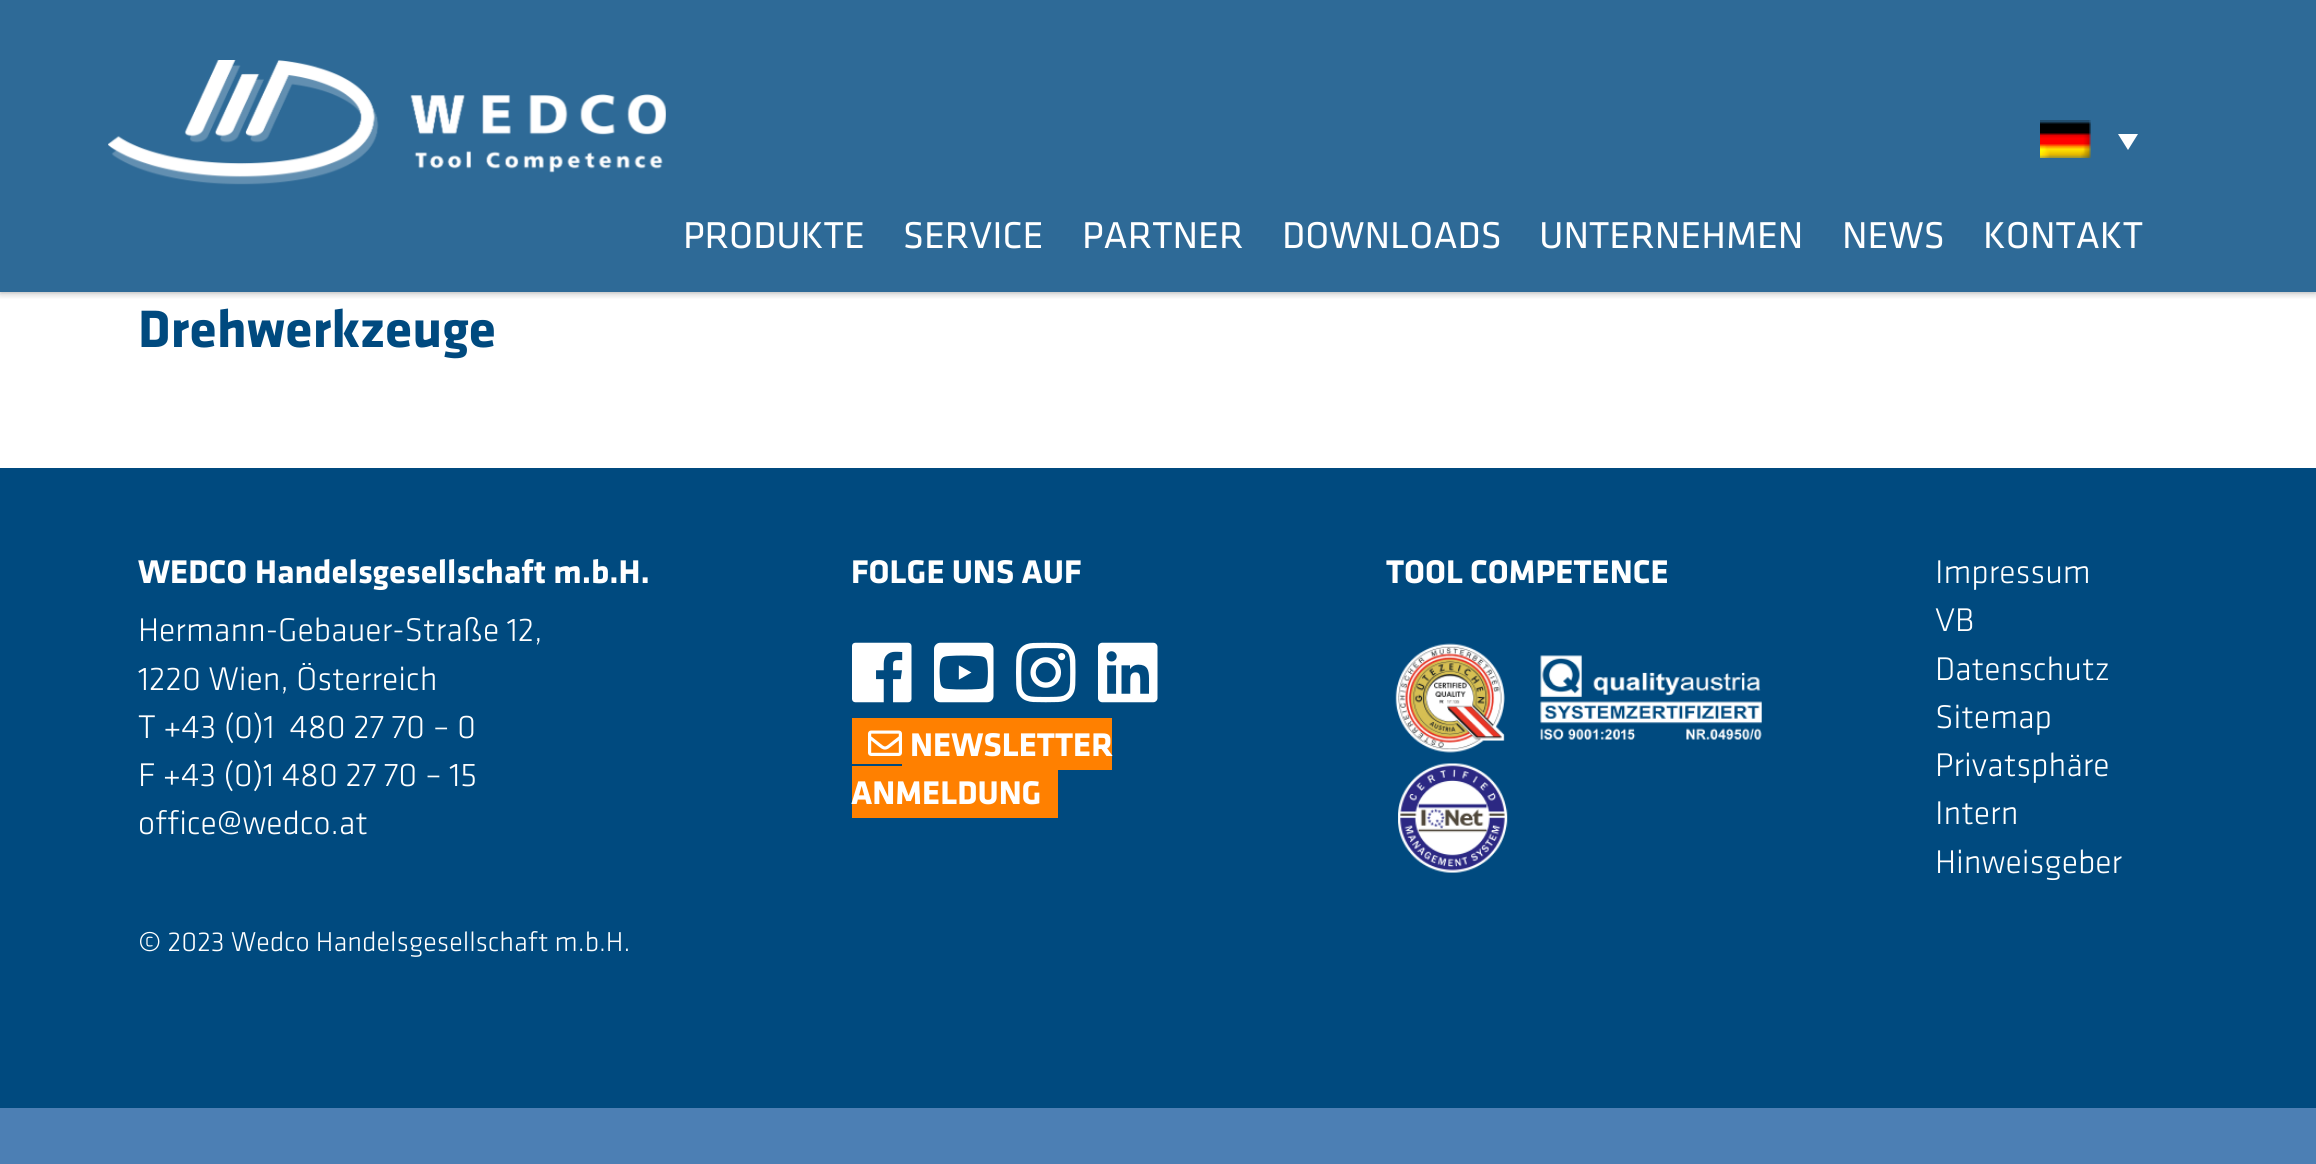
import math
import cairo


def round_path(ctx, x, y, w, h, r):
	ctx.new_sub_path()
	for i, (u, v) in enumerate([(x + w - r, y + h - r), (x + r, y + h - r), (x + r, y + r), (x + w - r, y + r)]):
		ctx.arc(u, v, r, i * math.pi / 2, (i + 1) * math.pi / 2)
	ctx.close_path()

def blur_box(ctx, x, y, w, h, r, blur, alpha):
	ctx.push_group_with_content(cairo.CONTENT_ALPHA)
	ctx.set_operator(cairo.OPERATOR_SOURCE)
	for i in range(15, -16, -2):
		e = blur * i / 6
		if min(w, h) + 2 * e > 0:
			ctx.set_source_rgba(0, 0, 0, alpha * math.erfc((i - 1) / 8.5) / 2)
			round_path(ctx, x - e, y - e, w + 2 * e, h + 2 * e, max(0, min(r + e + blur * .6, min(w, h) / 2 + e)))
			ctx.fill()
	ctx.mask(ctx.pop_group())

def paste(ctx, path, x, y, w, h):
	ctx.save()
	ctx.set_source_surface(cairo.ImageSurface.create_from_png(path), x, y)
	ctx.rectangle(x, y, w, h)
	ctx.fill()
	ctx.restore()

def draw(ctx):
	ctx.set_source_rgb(0.298, 0.498, 0.706)
	ctx.paint()
	ctx.set_source_rgb(1, 1, 1)
	ctx.rectangle(0, 0, 2316, 468)
	ctx.fill()
	ctx.save()
	ctx.rectangle(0, 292, 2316, 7)
	ctx.clip()
	ctx.set_source_rgb(0, 0, 0)
	blur_box(ctx, 0, 0, 2316, 292, 0, 4, 0.4)
	ctx.restore()
	ctx.set_source_rgba(0, 0.29, 0.502, 0.82)
	ctx.rectangle(0, 0, 2316, 292)
	ctx.fill()
	paste(ctx, 'media/1.png', 108, 60, 558, 125)
	paste(ctx, 'media/2.png', 2040, 120, 51, 38)
	ctx.set_source_rgb(1, 1, 1)
	ctx.new_path()
	ctx.move_to(2118, 134)
	ctx.line_to(2138, 134)
	ctx.line_to(2128, 150)
	ctx.close_path()
	ctx.fill()
	ctx.select_font_face('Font')
	ctx.set_font_size(38.75)
	for x, y, s in [
		(683, 248, 'PRODUKTE'),
		(903, 248, 'SERVICE'),
		(1082, 248, 'PARTNER'),
		(1282, 248, 'DOWNLOADS'),
		(1539, 248, 'UNTERNEHMEN'),
		(1842, 248, 'NEWS'),
		(1983, 248, 'KONTAKT'),
	]:
		ctx.move_to(x, y)
		ctx.show_text(s)
	ctx.select_font_face('Font', cairo.FONT_SLANT_NORMAL, cairo.FONT_WEIGHT_BOLD)
	ctx.set_font_size(54.5)
	ctx.set_source_rgb(0, 0.29, 0.498)
	ctx.move_to(138, 347)
	ctx.show_text('Drehwerkzeuge')
	ctx.rectangle(0, 468, 2316, 640)
	ctx.fill()
	ctx.set_font_size(34)
	ctx.set_source_rgb(1, 1, 1)
	ctx.move_to(138, 583)
	ctx.show_text('WEDCO')
	ctx.move_to(255, 583)
	ctx.show_text('Handelsgesellschaft m.b.H.')
	ctx.select_font_face('Font Light')
	for x, y, s in [
		(138, 641, 'Hermann-Gebauer-Straße 12,'),
		(138, 690, '1220 Wien, Österreich'),
		(138, 738, 'T +43 (0)1  480 27 70 – 0'),
		(138, 786, 'F +43 (0)1 480 27 70 – 15'),
		(138, 834, 'office@wedco.at'),
	]:
		ctx.move_to(x, y)
		ctx.show_text(s)
	ctx.set_font_size(28.3)
	ctx.move_to(138, 951)
	ctx.show_text('© 2023 Wedco Handelsgesellschaft m.b.H.')
	ctx.select_font_face('Font', cairo.FONT_SLANT_NORMAL, cairo.FONT_WEIGHT_BOLD)
	ctx.set_font_size(34)
	ctx.move_to(851, 583)
	ctx.show_text('FOLGE UNS AUF')
	paste(ctx, 'media/3.png', 852, 642, 60, 61)
	paste(ctx, 'media/4.png', 934, 642, 60, 61)
	paste(ctx, 'media/5.png', 1016, 642, 60, 61)
	paste(ctx, 'media/6.png', 1098, 642, 60, 61)
	ctx.set_source_rgb(1, 0.502, 0)
	ctx.rectangle(852, 718, 50, 46)
	ctx.rectangle(902, 718, 210, 52)
	ctx.rectangle(852, 766, 206, 52)
	ctx.fill()
	paste(ctx, 'media/7.png', 868, 730, 34, 26)
	ctx.set_source_rgb(1, 1, 1)
	for x, y, s in [
		(910, 756, 'NEWSLETTER'),
		(851, 804, 'ANMELDUNG'),
		(1386, 583, 'TOOL COMPETENCE'),
	]:
		ctx.move_to(x, y)
		ctx.show_text(s)
	paste(ctx, 'media/8.png', 1395, 643, 110, 110)
	paste(ctx, 'media/9.png', 1540, 655, 222, 85)
	paste(ctx, 'media/10.png', 1398, 763, 110, 110)
	ctx.select_font_face('Font Light')
	for x, y, s in [
		(1935, 583, 'Impressum'),
		(1935, 631, 'VB'),
		(1935, 680, 'Datenschutz'),
		(1935, 728, 'Sitemap'),
		(1935, 776, 'Privatsphäre'),
		(1935, 824, 'Intern'),
		(1935, 873, 'Hinweisgeber'),
	]:
		ctx.move_to(x, y)
		ctx.show_text(s)


surface = cairo.ImageSurface(cairo.FORMAT_RGB24, 2316, 1164)
ctx = cairo.Context(surface)
options = cairo.FontOptions()
options.set_hint_metrics(cairo.HINT_METRICS_OFF)
options.set_hint_style(cairo.HINT_STYLE_NONE)
ctx.set_font_options(options)
ctx.set_miter_limit(4)
draw(ctx)
surface.write_to_png('image.png')
